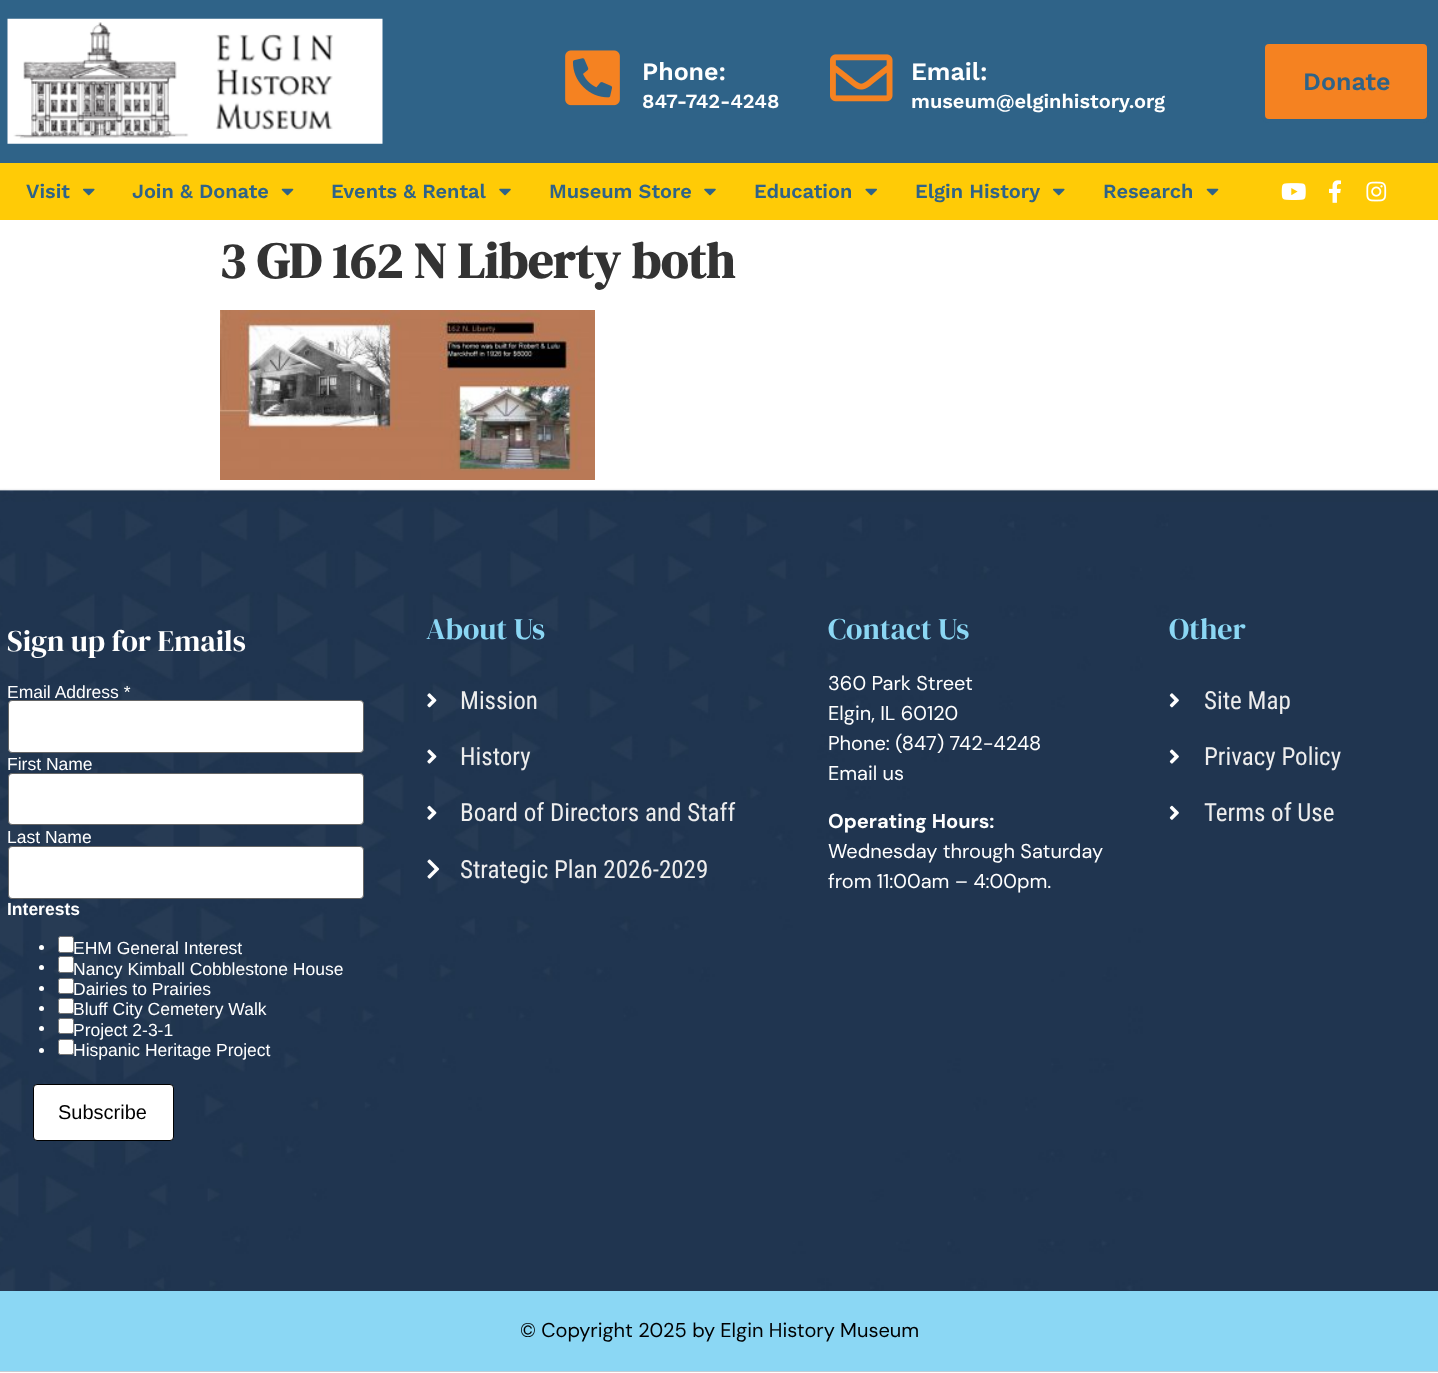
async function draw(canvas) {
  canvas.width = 1438;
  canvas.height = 1373;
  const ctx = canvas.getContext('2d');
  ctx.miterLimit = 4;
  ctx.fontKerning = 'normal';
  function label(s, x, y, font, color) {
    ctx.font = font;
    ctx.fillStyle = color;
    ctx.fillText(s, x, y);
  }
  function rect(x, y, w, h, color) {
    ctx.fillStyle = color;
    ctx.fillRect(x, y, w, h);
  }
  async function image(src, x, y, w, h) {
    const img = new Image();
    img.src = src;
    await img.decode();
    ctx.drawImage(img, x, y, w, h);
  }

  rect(0, 0, 1438, 1373, '#fff');
  rect(0, 0, 1438, 163, '#2f6388');
  await image('assets/img1.png', 7, 18, 376, 126);
  await image('assets/img2.png', 565, 50, 55, 56);
  label('Phone:', 642, 80, '600 25px Work Sans', '#fff');
  label('847-742-4248', 642, 108, '600 20px Work Sans', '#fff');
  await image('assets/img3.png', 830, 54, 63, 48);
  label('Email:', 911, 80, '600 25px Work Sans', '#fff');
  label('museum@elginhistory.org', 911, 108, '600 20px Work Sans', '#fff');
  ctx.fillStyle = '#f58221';
  ctx.beginPath();
  ctx.roundRect(1263, 42, 166, 79, 6);
  ctx.fill();
  ctx.strokeStyle = '#2f6388';
  ctx.lineWidth = 4;
  ctx.stroke();
  label('Donate', 1303, 90, '600 25px Work Sans', '#2f6388');
  rect(0, 163, 1438, 57, '#ffcb06');
  label('Visit', 26, 198, '600 20px Work Sans', '#2f6388');
  await image('assets/img4.png', 83, 188, 12, 8);
  label('Join & Donate', 132, 198, '600 20px Work Sans', '#2f6388');
  await image('assets/img5.png', 281, 188, 13, 8);
  label('Events & Rental', 331, 198, '600 20px Work Sans', '#2f6388');
  await image('assets/img6.png', 499, 188, 12, 8);
  label('Museum Store', 549, 198, '600 20px Work Sans', '#2f6388');
  await image('assets/img6.png', 704, 188, 12, 8);
  label('Education', 754, 198, '600 20px Work Sans', '#2f6388');
  await image('assets/img7.png', 865, 188, 12, 8);
  label('Elgin History', 915, 198, '600 20px Work Sans', '#2f6388');
  await image('assets/img4.png', 1053, 188, 12, 8);
  label('Research', 1103, 198, '600 20px Work Sans', '#2f6388');
  await image('assets/img5.png', 1206, 188, 13, 8);
  await image('assets/img8.png', 1281, 183, 25, 17);
  await image('assets/img9.png', 1329, 180, 12, 23);
  await image('assets/img10.png', 1366, 181, 21, 21);
  label('3 GD 162 N Liberty both', 219, 278, 'bold 50px DM Serif Display', '#333');
  await image('assets/img11.png', 220, 310, 375, 170);
  await image('assets/img12.png', 0, 488, 1438, 884);
  label('Sign up for Emails', 7, 651, '30px DM Serif Display', '#fff');
  label('Email Address *', 7, 698, '17.5px Liberation Sans', '#fff');
  ctx.beginPath();
  ctx.roundRect(8.5, 700.5, 355, 52, 3.5);
  ctx.fill();
  ctx.strokeStyle = '#666';
  ctx.lineWidth = 1;
  ctx.stroke();
  label('First Name', 7, 770, '17.5px Liberation Sans', '#fff');
  ctx.beginPath();
  ctx.roundRect(8.5, 773.5, 355, 51, 3.5);
  ctx.fill();
  ctx.stroke();
  label('Last Name', 7, 843, '17.5px Liberation Sans', '#fff');
  ctx.beginPath();
  ctx.roundRect(8.5, 846.5, 355, 52, 3.5);
  ctx.fill();
  ctx.stroke();
  label('Interests', 7, 915, 'bold 17.5px Liberation Sans', '#fff');
  ctx.beginPath();
  ctx.arc(41.5, 947.5, 2.5, 0, 2 * Math.PI);
  ctx.fill();
  ctx.beginPath();
  ctx.roundRect(58.5, 936.5, 15, 16, 2);
  ctx.fill();
  ctx.strokeStyle = '#767676';
  ctx.stroke();
  label('EHM General Interest', 73, 954, '17.5px Liberation Sans', '#fff');
  ctx.beginPath();
  ctx.arc(41.5, 967.5, 2.5, 0, 2 * Math.PI);
  ctx.fill();
  ctx.beginPath();
  ctx.roundRect(58.5, 956.5, 15, 16, 2);
  ctx.fill();
  ctx.stroke();
  label('Nancy Kimball Cobblestone House', 73, 975, '17.5px Liberation Sans', '#fff');
  ctx.beginPath();
  ctx.arc(41.5, 988.5, 2.5, 0, 2 * Math.PI);
  ctx.fill();
  ctx.beginPath();
  ctx.roundRect(58.5, 978.5, 15, 15, 2);
  ctx.fill();
  ctx.stroke();
  label('Dairies to Prairies', 73, 995, '17.5px Liberation Sans', '#fff');
  ctx.beginPath();
  ctx.arc(41.5, 1008.5, 2.5, 0, 2 * Math.PI);
  ctx.fill();
  ctx.beginPath();
  ctx.roundRect(58.5, 998.5, 15, 15, 2);
  ctx.fill();
  ctx.stroke();
  label('Bluff City Cemetery Walk', 73, 1015, '17.5px Liberation Sans', '#fff');
  ctx.beginPath();
  ctx.arc(41.5, 1028.5, 2.5, 0, 2 * Math.PI);
  ctx.fill();
  ctx.beginPath();
  ctx.roundRect(58.5, 1018.5, 15, 15, 2);
  ctx.fill();
  ctx.stroke();
  label('Project 2-3-1', 73, 1036, '17.5px Liberation Sans', '#fff');
  ctx.beginPath();
  ctx.arc(41.5, 1050.5, 2.5, 0, 2 * Math.PI);
  ctx.fill();
  ctx.beginPath();
  ctx.roundRect(58.5, 1039.5, 15, 15, 2);
  ctx.fill();
  ctx.stroke();
  label('Hispanic Heritage Project', 73, 1056, '17.5px Liberation Sans', '#fff');
  ctx.beginPath();
  ctx.roundRect(33.5, 1084.5, 140, 56, 3.5);
  ctx.fill();
  ctx.strokeStyle = '#000';
  ctx.stroke();
  label('Subscribe', 58, 1119, '20px Liberation Sans', '#000');
  label('About Us', 426, 639, '30px DM Serif Display', '#8bd7f4');
  await image('assets/img13.png', 427, 693, 10, 15);
  label('Mission', 460, 709, '25px Roboto Condensed', '#ededed');
  await image('assets/img14.png', 427, 749, 10, 15);
  label('History', 460, 765, '25px Roboto Condensed', '#ededed');
  await image('assets/img15.png', 427, 805, 10, 15);
  label('Board of Directors and Staff', 460, 821, '25px Roboto Condensed', '#ededed');
  await image('assets/img16.png', 427, 859, 13, 20);
  label('Strategic Plan 2026-2029', 460, 878, '25px Roboto Condensed', '#ededed');
  label('Contact Us', 828, 639, '30px DM Serif Display', '#8bd7f4');
  label('360 Park Street', 828, 690, '20px DM Sans', '#fff');
  label('Elgin, IL 60120', 828, 720, '20px DM Sans', '#fff');
  label('Phone: (847) 742-4248', 828, 750, '20px DM Sans', '#fff');
  label('Email us', 828, 780, '20px DM Sans', '#fff');
  label('Operating Hours:', 828, 828, 'bold 20px DM Sans', '#fff');
  label('Wednesday through Saturday', 828, 858, '20px DM Sans', '#fff');
  label('from 11:00am – 4:00pm.', 828, 888, '20px DM Sans', '#fff');
  label('Other', 1169, 639, '30px DM Serif Display', '#8bd7f4');
  await image('assets/img17.png', 1169, 693, 10, 15);
  label('Site Map', 1204, 709, '25px Roboto Condensed', '#ededed');
  await image('assets/img18.png', 1169, 749, 10, 15);
  label('Privacy Policy', 1204, 765, '25px Roboto Condensed', '#ededed');
  await image('assets/img19.png', 1169, 805, 10, 15);
  label('Terms of Use', 1204, 821, '25px Roboto Condensed', '#ededed');
  rect(0, 1291, 1438, 80, '#8bd7f4');
  label('© Copyright 2025 by Elgin History Museum', 520, 1337, '20px DM Sans', '#000');
}

draw(document.querySelector('canvas'));
